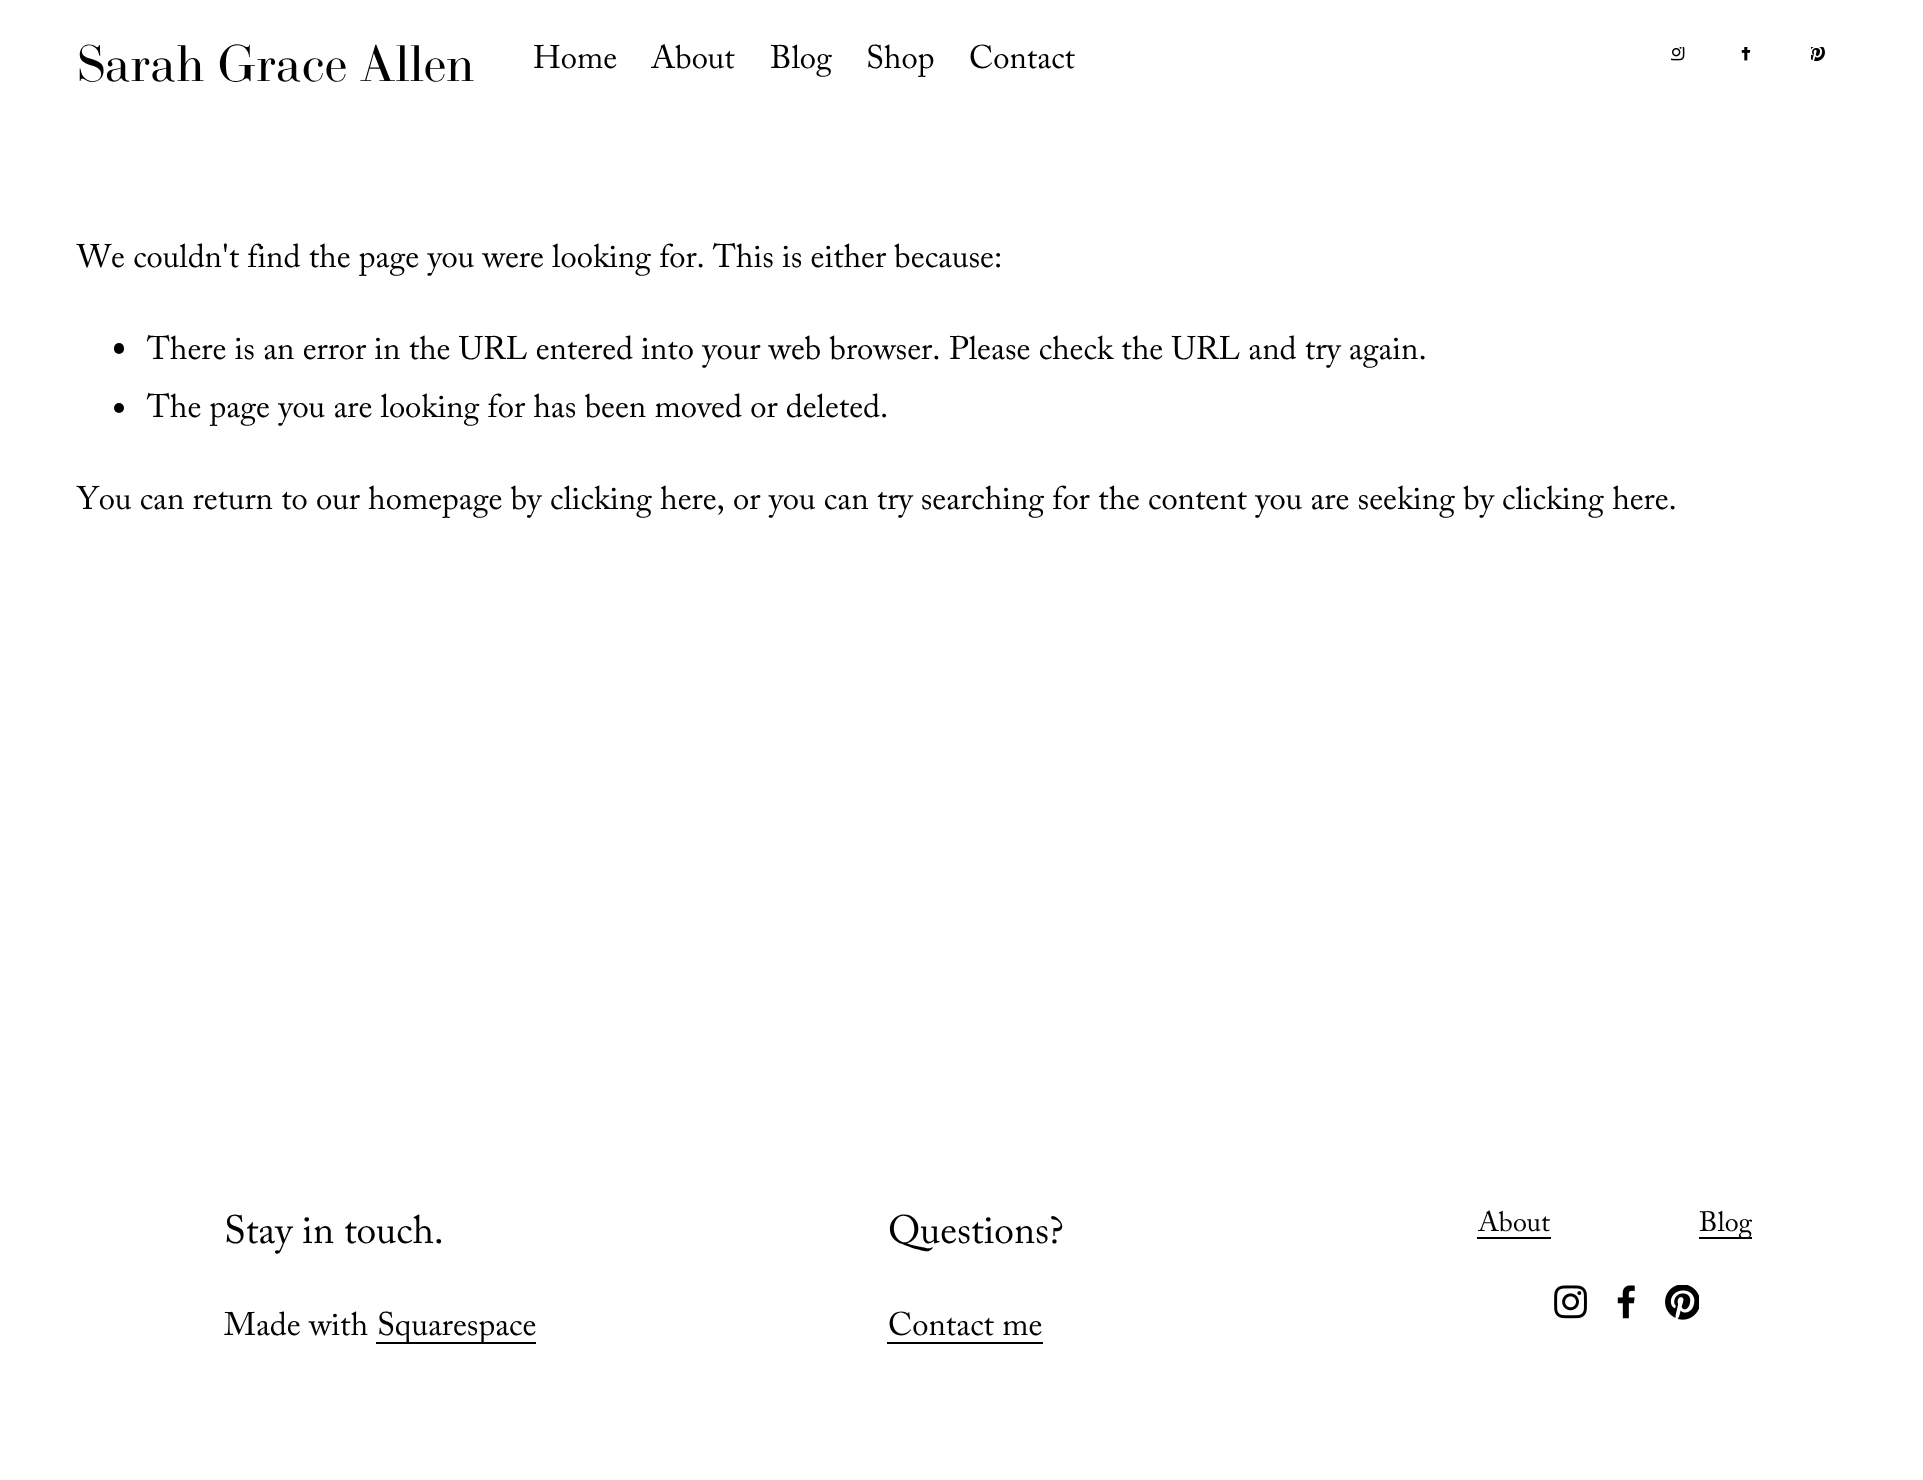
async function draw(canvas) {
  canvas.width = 1923;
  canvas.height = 1480;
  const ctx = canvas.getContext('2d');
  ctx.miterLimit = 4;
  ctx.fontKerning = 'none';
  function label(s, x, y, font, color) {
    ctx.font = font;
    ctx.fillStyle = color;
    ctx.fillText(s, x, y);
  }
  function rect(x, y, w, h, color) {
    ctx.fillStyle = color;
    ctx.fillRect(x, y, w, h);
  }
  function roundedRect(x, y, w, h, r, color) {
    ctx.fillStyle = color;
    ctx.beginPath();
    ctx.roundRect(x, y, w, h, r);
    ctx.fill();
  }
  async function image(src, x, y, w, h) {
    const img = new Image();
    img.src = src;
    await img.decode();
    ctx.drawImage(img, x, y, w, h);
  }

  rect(0, 0, 1923, 1480, '#fff');
  label('Sarah Grace Allen', 77, 81, '51px "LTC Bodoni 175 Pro"', '#000');
  label('Home', 533, 68, '32.6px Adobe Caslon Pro', '#000');
  label('About', 651, 68, '32.6px Adobe Caslon Pro', '#000');
  label('Blog', 770, 68, '32.6px Adobe Caslon Pro', '#000');
  label('Shop', 866, 68, '32.6px Adobe Caslon Pro', '#000');
  label('Contact', 969, 68, '32.6px Adobe Caslon Pro', '#000');
  await image('assets/img1.png', 1671, 47, 14, 14);
  await image('assets/img2.png', 1741, 47, 10, 14);
  await image('assets/img3.png', 1811, 47, 14, 15);
  label('We couldn\'t find the page you were looking for.', 77, 267, '32.6px Adobe Caslon Pro', '#000');
  label('This is either because:', 713, 267, '32.6px Adobe Caslon Pro', '#000');
  roundedRect(114, 343, 10, 11, 5, '#000');
  label('There is an error in the URL entered into your web browser.', 147, 359, '32.6px Adobe Caslon Pro', '#000');
  label('Please check the URL and try again.', 949, 359, '32.6px Adobe Caslon Pro', '#000');
  ctx.beginPath();
  ctx.arc(119, 408, 5, 0, 2 * Math.PI);
  ctx.fill();
  label('The page you are looking for has been moved or deleted.', 147, 417, '32.6px Adobe Caslon Pro', '#000');
  label('You can return to our homepage by', 77, 509, '32.6px Adobe Caslon Pro', '#000');
  label('clicking here, or you can try searching for the', 550, 509, '32.6px Adobe Caslon Pro', '#000');
  label('content you are seeking by clicking here.', 1148, 509, '32.6px Adobe Caslon Pro', '#000');
  label('Stay in touch.', 224, 1243, '39.5px Adobe Caslon Pro', '#000');
  label('Made with', 224, 1335, '32.6px Adobe Caslon Pro', '#000');
  rect(376, 1342, 160, 2, '#000');
  label('Squarespace', 377, 1335, '32.6px Adobe Caslon Pro', '#000');
  label('Questions?', 888, 1243, '39.5px Adobe Caslon Pro', '#000');
  label('Contact me', 888, 1335, '32.6px Adobe Caslon Pro', '#000');
  rect(887, 1342, 156, 2, '#000');
  label('About', 1478, 1231, '28px Adobe Caslon Pro', '#000');
  rect(1477, 1237, 74, 2, '#000');
  await image('assets/img4.png', 1554, 1285, 33, 34);
  await image('assets/img5.png', 1617, 1285, 18, 34);
  await image('assets/img6.png', 1665, 1285, 34, 35);
  rect(1699, 1237, 53, 2, '#000');
  label('Blog', 1699, 1231, '28px Adobe Caslon Pro', '#000');
}

draw(document.querySelector('canvas'));
